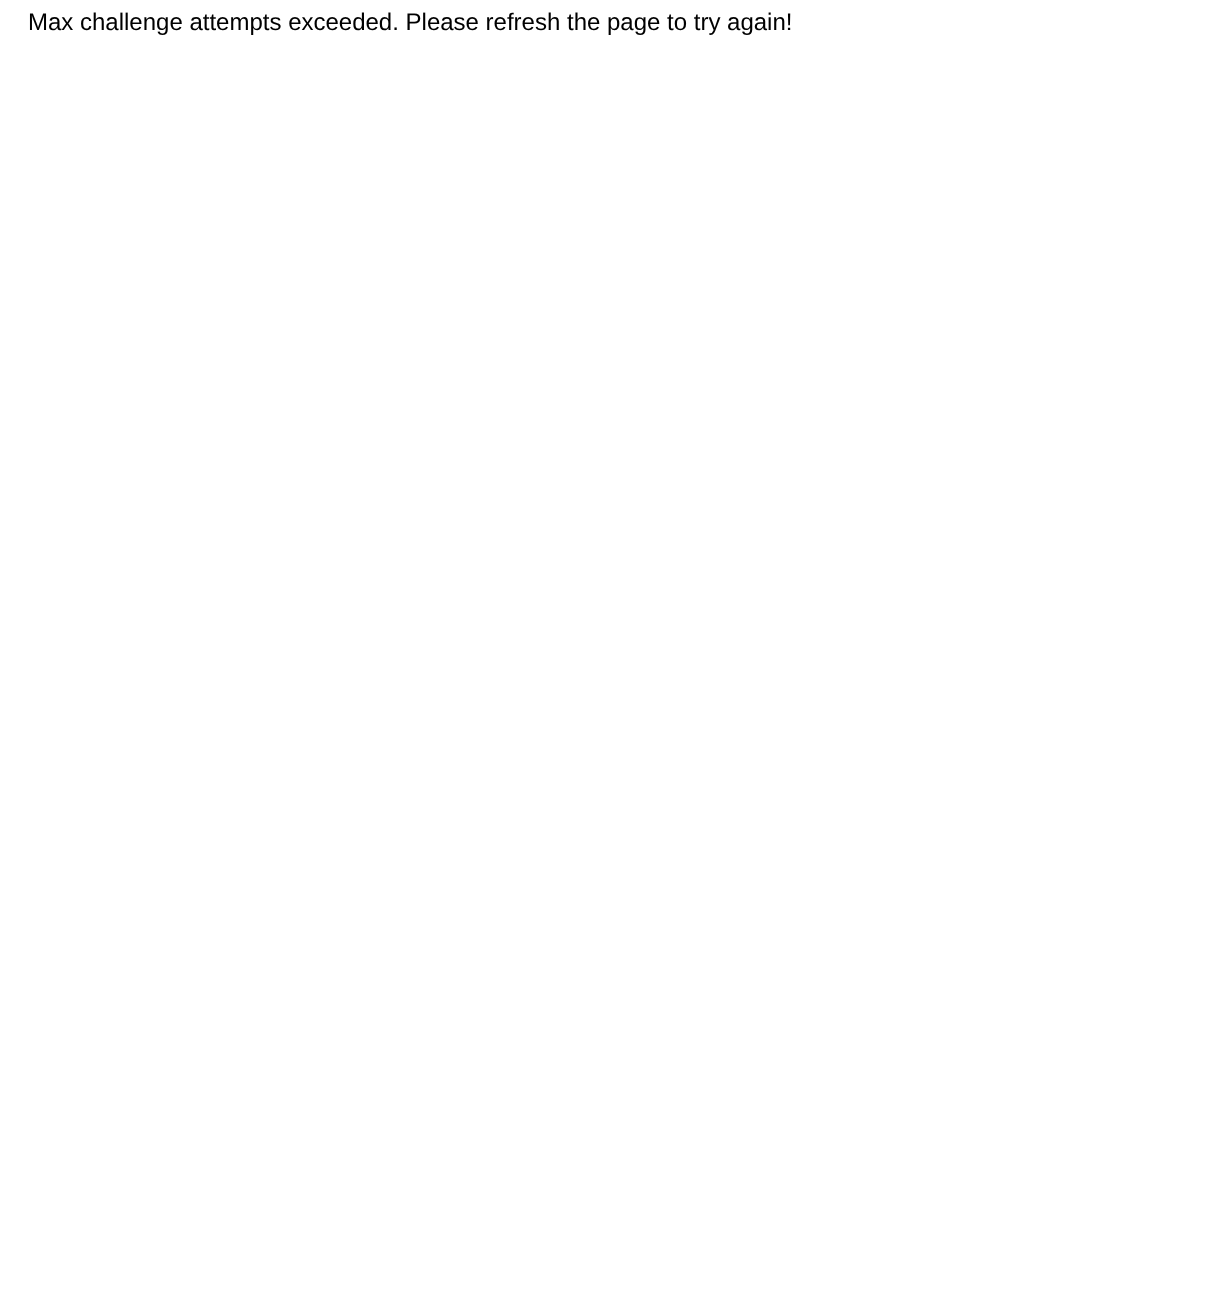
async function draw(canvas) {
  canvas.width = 1226;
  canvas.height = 1309;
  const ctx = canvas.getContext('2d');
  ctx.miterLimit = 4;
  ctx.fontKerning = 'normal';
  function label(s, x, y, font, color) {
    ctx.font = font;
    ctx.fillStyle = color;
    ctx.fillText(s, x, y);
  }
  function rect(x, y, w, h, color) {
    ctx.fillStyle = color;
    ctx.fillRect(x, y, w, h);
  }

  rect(0, 0, 1226, 1309, '#fff');
  label('Max challenge attempts exceeded. Please refresh the page to try again!', 28, 30, '24px Liberation Sans', '#000');
}

draw(document.querySelector('canvas'));
